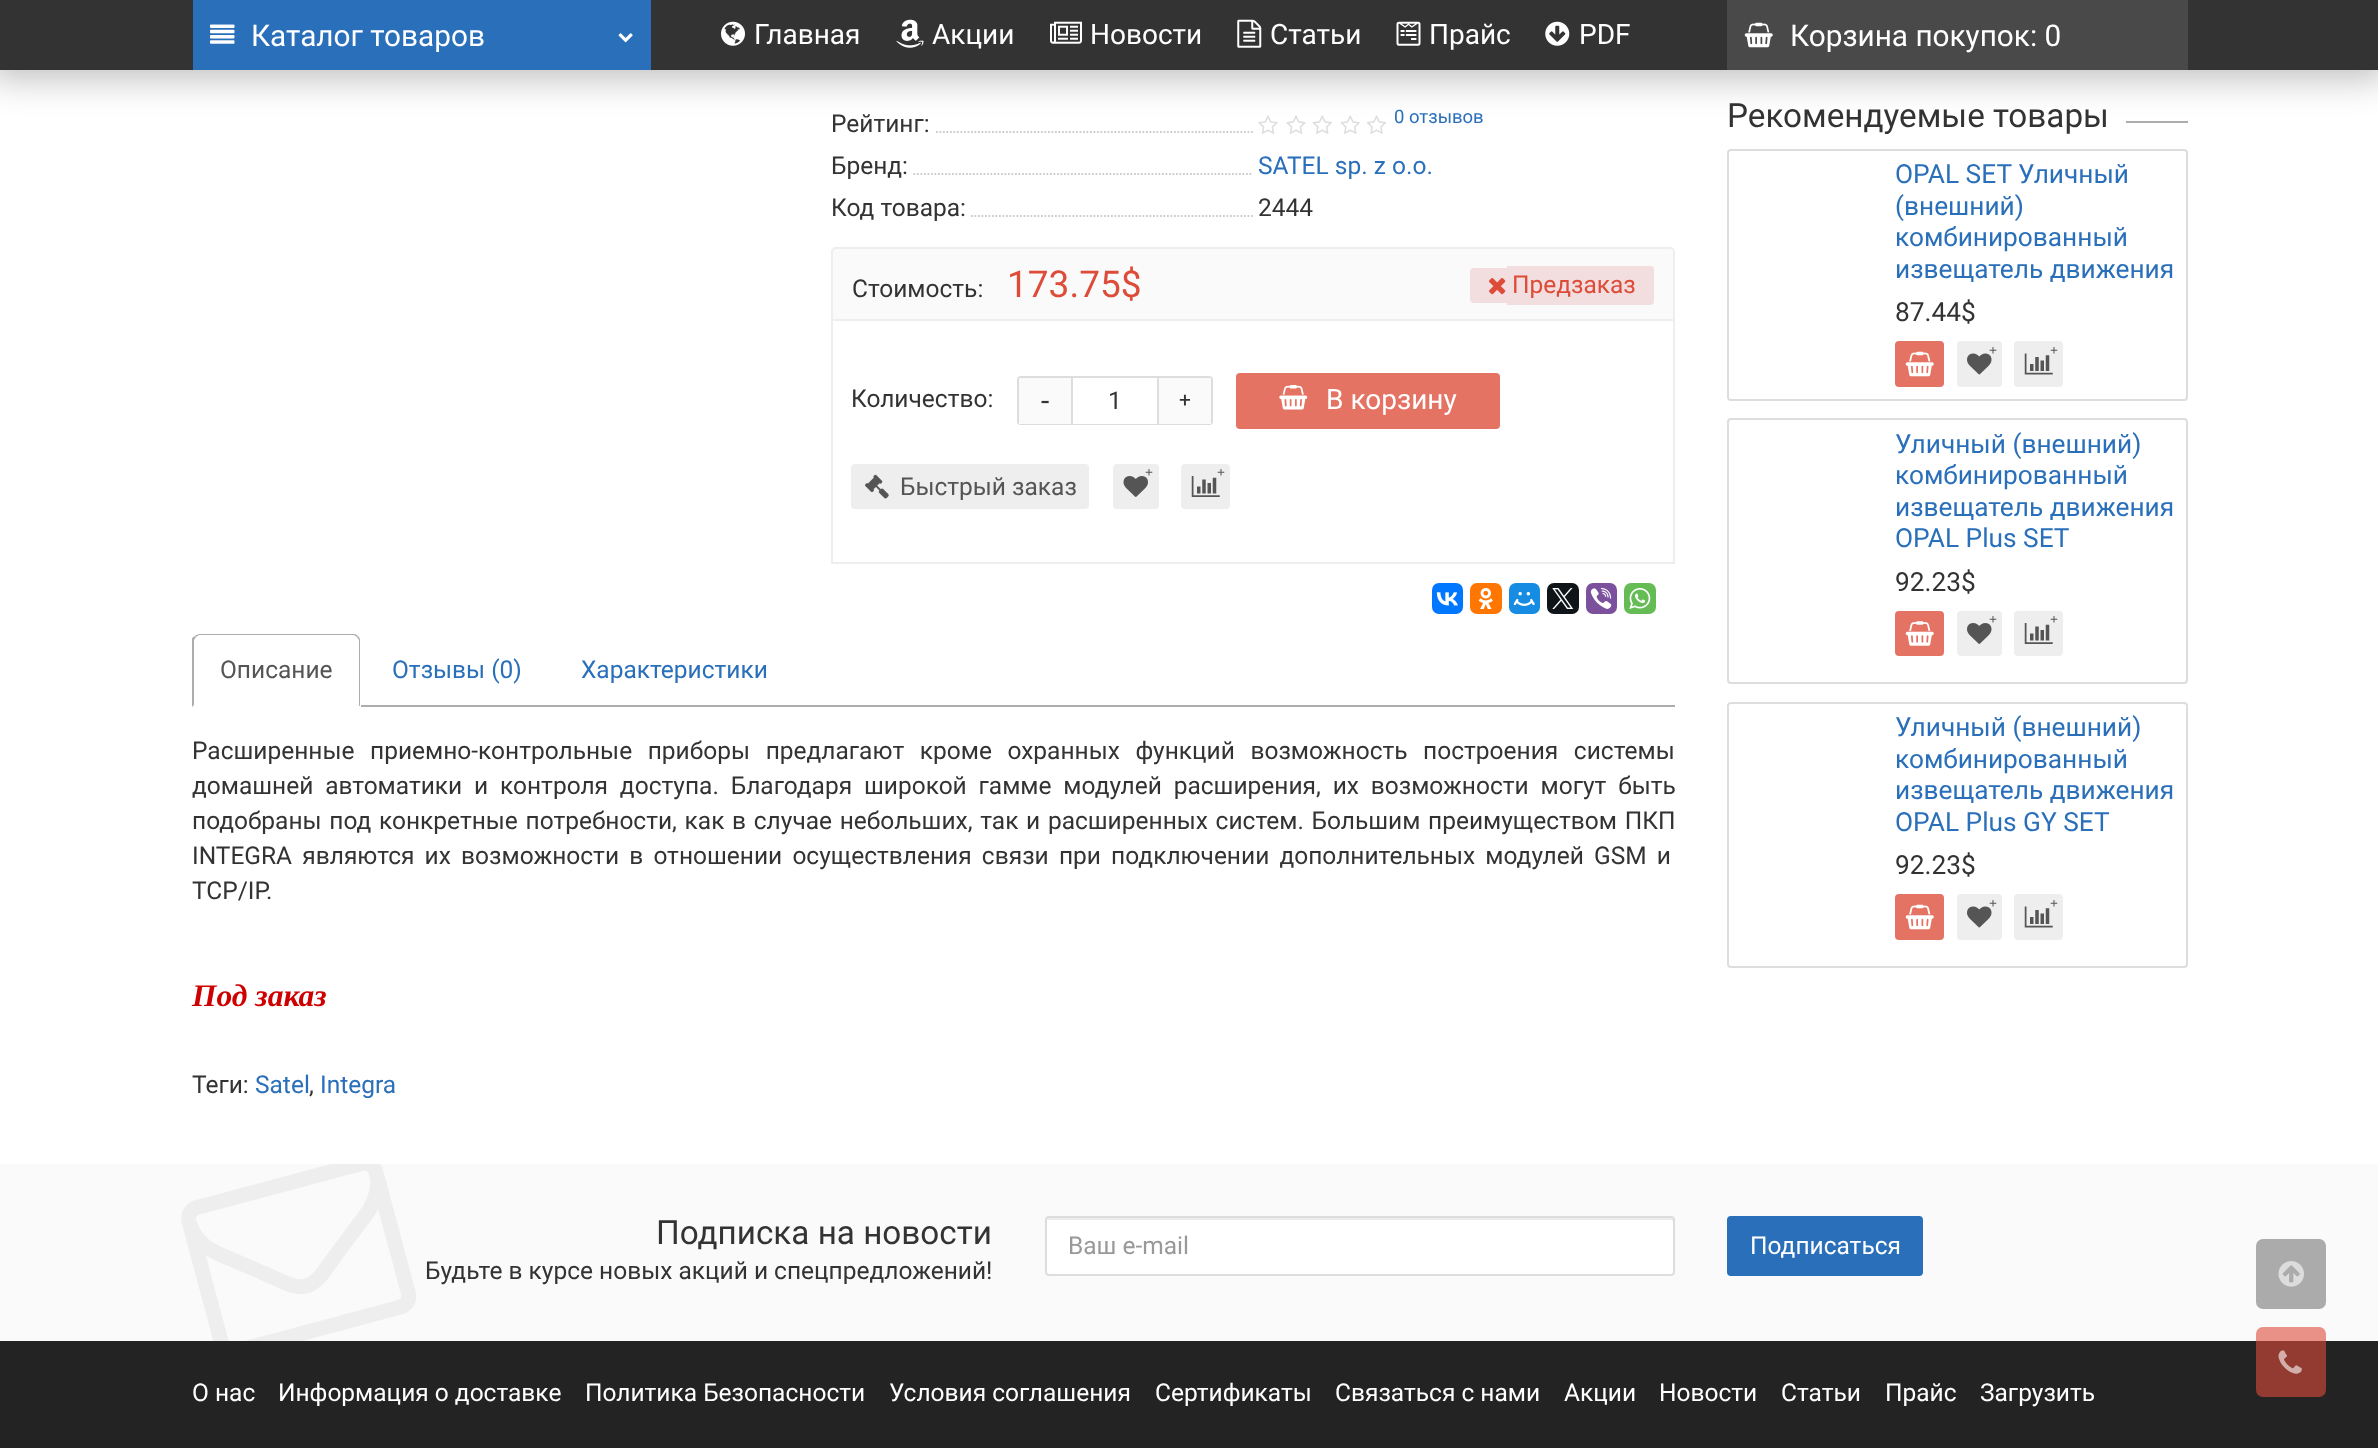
async function draw(canvas) {
  canvas.width = 2378;
  canvas.height = 1448;
  const ctx = canvas.getContext('2d');
  ctx.miterLimit = 4;
  ctx.fontKerning = 'normal';
  function label(s, x, y, font, color) {
    ctx.font = font;
    ctx.fillStyle = color;
    ctx.fillText(s, x, y);
  }
  function rect(x, y, w, h, color) {
    ctx.fillStyle = color;
    ctx.fillRect(x, y, w, h);
  }
  function roundedRect(x, y, w, h, r, color) {
    ctx.fillStyle = color;
    ctx.beginPath();
    ctx.roundRect(x, y, w, h, r);
    ctx.fill();
  }
  async function image(src, x, y, w, h) {
    const img = new Image();
    img.src = src;
    await img.decode();
    ctx.drawImage(img, x, y, w, h);
  }
  let path;

  rect(0, 0, 2378, 1448, '#fff');
  ctx.save();
  ctx.beginPath();
  ctx.rect(831, 103, 422, 42);
  ctx.clip();
  path = new Path2D('M936 132H1356');
  ctx.strokeStyle = '#ccc';
  ctx.lineWidth = 1.8;
  ctx.setLineDash([1.75, 1.75]);
  ctx.stroke(path);
  ctx.restore();
  await image('assets/img10.png', 1258, 115, 20, 19);
  await image('assets/img10.png', 1286, 115, 20, 19);
  await image('assets/img11.png', 1312, 115, 20, 19);
  await image('assets/img11.png', 1340, 115, 20, 19);
  await image('assets/img12.png', 1366, 115, 20, 19);
  rect(2126, 121, 62, 2, '#adadad');
  ctx.fillStyle = '#00000040';
  ctx.filter = 'blur(17.5px)';
  ctx.beginPath();
  ctx.rect(-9, -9, 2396, 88);
  ctx.fill();
  ctx.filter = 'none';
  rect(0, 0, 2378, 70, '#333');
  rect(193, 0, 458, 70, '#2a6fba');
  await image('assets/img1.png', 210, 24, 25, 20);
  label('Каталог товаров', 251, 46, '29.75px Roboto', '#fff');
  await image('assets/img2.png', 618, 33, 15, 10);
  await image('assets/img3.png', 721, 21, 24, 25);
  label('Главная', 754, 44, '28px Roboto', '#fff');
  await image('assets/img4.png', 896, 19, 28, 29);
  label('Акции', 932, 44, '28px Roboto', '#fff');
  await image('assets/img5.png', 1050, 21, 32, 23);
  label('Новости', 1090, 44, '28px Roboto', '#fff');
  await image('assets/img6.png', 1237, 19, 25, 29);
  label('Статьи', 1270, 44, '28px Roboto', '#fff');
  await image('assets/img7.png', 1396, 21, 25, 25);
  label('Прайс', 1429, 44, '28px Roboto', '#fff');
  await image('assets/img8.png', 1545, 21, 25, 25);
  label('PDF', 1579, 44, '28px Roboto', '#fff');
  rect(1727, 0, 461, 70, '#494949');
  await image('assets/img9.png', 1744, 22, 29, 26);
  label('Корзина покупок: 0', 1790, 46, '29.75px Roboto', '#fff');
  label('Рейтинг:', 831, 132, '24.5px Roboto', '#333');
  label('0 отзывов', 1394, 123, '18.5px Roboto', '#2a6fba');
  label('Бренд:', 831, 174, '24.5px Roboto', '#333');
  ctx.save();
  ctx.beginPath();
  ctx.rect(831, 145, 422, 42);
  ctx.clip();
  path = new Path2D('M913.5 174H1335');
  ctx.strokeStyle = '#ccc';
  ctx.lineWidth = 1.8;
  ctx.setLineDash([1.75, 1.75]);
  ctx.stroke(path);
  ctx.restore();
  label('SATEL sp. z o.o.', 1258, 174, '24.5px Roboto', '#2a6fba');
  label('Код товара:', 831, 216, '24.5px Roboto', '#333');
  ctx.save();
  ctx.beginPath();
  ctx.rect(831, 187, 422, 42);
  ctx.clip();
  path = new Path2D('M971 216H1393');
  ctx.strokeStyle = '#ccc';
  ctx.lineWidth = 1.8;
  ctx.setLineDash([1.75, 1.75]);
  ctx.stroke(path);
  ctx.restore();
  label('2444', 1258, 216, '24.5px Roboto', '#333');
  ctx.fillStyle = '#fafafa';
  ctx.beginPath();
  ctx.roundRect(832, 248, 842, 315, 4);
  ctx.fill();
  ctx.strokeStyle = '#eee';
  ctx.lineWidth = 2;
  ctx.stroke();
  label('Стоимость:', 852, 297, '24.5px Roboto', '#333');
  label('173.75$', 1007, 297, '37px Roboto', '#dd4b39');
  ctx.fillStyle = '#f2dede';
  ctx.beginPath();
  ctx.roundRect(1470, 268, 37, 35, [4, 0, 0, 4]);
  ctx.fill();
  ctx.beginPath();
  ctx.roundRect(1507, 266, 147, 39, [0, 4, 4, 0]);
  ctx.fill();
  await image('assets/img13.png', 1489, 278, 17, 17);
  label('Предзаказ', 1512, 293, '24.5px Roboto', '#dd4b39');
  ctx.fillStyle = '#fff';
  ctx.beginPath();
  ctx.rect(832, 320, 842, 243);
  ctx.fill();
  ctx.stroke();
  label('Количество:', 851, 407, '24.5px Roboto', '#333');
  ctx.beginPath();
  ctx.roundRect(1018, 377, 194, 47, 3);
  ctx.strokeStyle = '#ddd';
  ctx.stroke();
  rect(1073, 423, 84, 1, '#fff');
  rect(1157, 378, 2, 46, '#ddd');
  rect(1071, 378, 2, 46, '#ddd');
  label('1', 1108, 409, '24.5px Roboto', '#333');
  rect(1019, 378, 52, 46, '#fafafa');
  label('-', 1041, 411, '29.75px Roboto', '#333');
  rect(1159, 378, 52, 46, '#fafafa');
  label('+', 1179, 407, '21px Roboto', '#333');
  roundedRect(1236, 373, 264, 56, 4, '#e47364');
  await image('assets/img14.png', 1279, 385, 29, 25);
  label('В корзину', 1326, 409, '28px Roboto', '#fff');
  ctx.fillStyle = '#eee';
  ctx.beginPath();
  ctx.roundRect(1115, 466, 42, 41, 2);
  ctx.fill();
  ctx.strokeStyle = '#eee';
  ctx.lineWidth = 4;
  ctx.stroke();
  label('+', 1145, 477, 'bold 14px Liberation Serif', '#555');
  await image('assets/img15.png', 1123, 476, 25, 21);
  ctx.fillStyle = '#eee';
  ctx.beginPath();
  ctx.roundRect(1183, 466, 45, 41, 2);
  ctx.fill();
  ctx.stroke();
  label('+', 1217, 477, 'bold 14px Liberation Serif', '#555');
  await image('assets/img16.png', 1191, 476, 29, 21);
  ctx.fillStyle = '#eee';
  ctx.beginPath();
  ctx.roundRect(853, 466, 234, 41, 2);
  ctx.fill();
  ctx.stroke();
  await image('assets/img17.png', 865, 474, 24, 25);
  label('Быстрый заказ', 900, 495, '24.5px Roboto', '#555');
  roundedRect(1432, 583, 31, 31, 7, '#07f');
  await image('assets/img18.png', 1436, 592, 22, 14);
  roundedRect(1470, 583, 32, 31, 7, '#f70');
  await image('assets/img19.png', 1478, 588, 15, 21);
  roundedRect(1509, 583, 31, 31, 7, '#168de2');
  await image('assets/img20.png', 1513, 592, 22, 14);
  roundedRect(1547, 583, 32, 31, 7, '#0f1419');
  await image('assets/img21.png', 1552, 588, 22, 21);
  roundedRect(1586, 583, 31, 31, 7, '#7b519d');
  await image('assets/img22.png', 1590, 588, 22, 21);
  roundedRect(1624, 583, 32, 31, 7, '#65bc54');
  await image('assets/img23.png', 1629, 588, 22, 21);
  rect(361, 705, 1314, 2, '#adadad');
  path = new Path2D('M200 634C198 634 196 635 195 636L196 637L199 635H354L357 637L358 636C357 635 356 634 354 634Z');
  ctx.fill(path);
  path = new Path2D('M360 706V640C360 638 359 637 358 636L357 637L359 640V705H358Z');
  ctx.fill(path);
  path = new Path2D('M192 707L194 705V640L196 637L195 636L192 638Z');
  ctx.fill(path);
  label('Описание', 220, 678, '24.5px Roboto', '#555');
  label('Отзывы (0)', 392, 678, '24.5px Roboto', '#2a6fba');
  label('Характеристики', 581, 678, '24.5px Roboto', '#2a6fba');
  ctx.wordSpacing = '9.5px';
  label('Расширенные приемно-контрольные приборы предлагают кроме охранных функций возможность построения системы', 192, 759, '24.5px Roboto', '#333');
  ctx.wordSpacing = '5.75px';
  label('домашней автоматики и контроля доступа. Благодаря широкой гамме модулей расширения, их возможности могут быть', 192, 794, '24.5px Roboto', '#333');
  ctx.wordSpacing = '1.6px';
  label('подобраны под конкретные потребности, как в случае небольших, так и расширенных систем. Большим преимуществом ПКП', 192, 829, '24.5px Roboto', '#333');
  ctx.wordSpacing = '4.1px';
  label('INTEGRA являются их возможности в отношении осуществления связи при подключении дополнительных модулей GSM и', 192, 864, '24.5px Roboto', '#333');
  ctx.wordSpacing = '0px';
  label('TCP/IP.', 192, 899, '24.5px Roboto', '#333');
  label('Под заказ', 192, 1006, 'italic bold 31.5px Liberation Serif', '#ce0000');
  label('Теги:', 192, 1093, '24.5px Roboto', '#333');
  label('Satel', 255, 1093, '24.5px Roboto', '#2a6fba');
  label(',', 309, 1093, '24.5px Roboto', '#333');
  label('Integra', 320, 1093, '24.5px Roboto', '#2a6fba');
  label('Рекомендуемые товары', 1727, 127, '33.25px Roboto', '#333');
  ctx.beginPath();
  ctx.roundRect(1728, 150, 459, 250, 3);
  ctx.strokeStyle = '#ddd';
  ctx.lineWidth = 2;
  ctx.stroke();
  label('OPAL SET Уличный', 1895, 183, '26.25px Roboto', '#2a6fba');
  label('(внешний)', 1895, 215, '26.25px Roboto', '#2a6fba');
  label('комбинированный', 1895, 246, '26.25px Roboto', '#2a6fba');
  label('извещатель движения', 1895, 278, '26.25px Roboto', '#2a6fba');
  label('87.44$', 1895, 321, '26.25px Roboto', '#333');
  ctx.fillStyle = '#e47364';
  ctx.beginPath();
  ctx.roundRect(1897, 343, 45, 42, 2);
  ctx.fill();
  ctx.strokeStyle = '#e47364';
  ctx.lineWidth = 4;
  ctx.stroke();
  await image('assets/img24.png', 1905, 351, 29, 26);
  ctx.fillStyle = '#eee';
  ctx.beginPath();
  ctx.roundRect(1959, 343, 41, 42, 2);
  ctx.fill();
  ctx.strokeStyle = '#eee';
  ctx.stroke();
  await image('assets/img25.png', 1967, 353, 25, 22);
  label('+', 1989, 355, 'bold 14px Liberation Serif', '#555');
  ctx.fillStyle = '#eee';
  ctx.beginPath();
  ctx.roundRect(2016, 343, 45, 42, 2);
  ctx.fill();
  ctx.stroke();
  await image('assets/img26.png', 2024, 353, 29, 22);
  label('+', 2050, 355, 'bold 14px Liberation Serif', '#555');
  ctx.beginPath();
  ctx.roundRect(1728, 419, 459, 264, 3);
  ctx.strokeStyle = '#ddd';
  ctx.lineWidth = 2;
  ctx.stroke();
  label('Уличный (внешний)', 1895, 453, '26.25px Roboto', '#2a6fba');
  label('комбинированный', 1895, 484, '26.25px Roboto', '#2a6fba');
  label('извещатель движения', 1895, 516, '26.25px Roboto', '#2a6fba');
  label('OPAL Plus SET', 1895, 547, '26.25px Roboto', '#2a6fba');
  label('92.23$', 1895, 591, '26.25px Roboto', '#333');
  ctx.fillStyle = '#e47364';
  ctx.beginPath();
  ctx.roundRect(1897, 613, 45, 41, 2);
  ctx.fill();
  ctx.strokeStyle = '#e47364';
  ctx.lineWidth = 4;
  ctx.stroke();
  await image('assets/img27.png', 1905, 621, 29, 25);
  ctx.fillStyle = '#eee';
  ctx.beginPath();
  ctx.roundRect(1959, 613, 41, 41, 2);
  ctx.fill();
  ctx.strokeStyle = '#eee';
  ctx.stroke();
  label('+', 1989, 624, 'bold 14px Liberation Serif', '#555');
  await image('assets/img28.png', 1967, 623, 25, 21);
  ctx.fillStyle = '#eee';
  ctx.beginPath();
  ctx.roundRect(2016, 613, 45, 41, 2);
  ctx.fill();
  ctx.stroke();
  label('+', 2050, 624, 'bold 14px Liberation Serif', '#555');
  await image('assets/img16.png', 2024, 623, 29, 21);
  ctx.beginPath();
  ctx.roundRect(1728, 703, 459, 264, 3);
  ctx.strokeStyle = '#ddd';
  ctx.lineWidth = 2;
  ctx.stroke();
  label('Уличный (внешний)', 1895, 736, '26.25px Roboto', '#2a6fba');
  label('комбинированный', 1895, 768, '26.25px Roboto', '#2a6fba');
  label('извещатель движения', 1895, 799, '26.25px Roboto', '#2a6fba');
  label('OPAL Plus GY SET', 1895, 831, '26.25px Roboto', '#2a6fba');
  label('92.23$', 1895, 874, '26.25px Roboto', '#333');
  ctx.fillStyle = '#e47364';
  ctx.beginPath();
  ctx.roundRect(1897, 896, 45, 42, 2);
  ctx.fill();
  ctx.strokeStyle = '#e47364';
  ctx.lineWidth = 4;
  ctx.stroke();
  await image('assets/img24.png', 1905, 904, 29, 26);
  ctx.fillStyle = '#eee';
  ctx.beginPath();
  ctx.roundRect(1959, 896, 41, 42, 2);
  ctx.fill();
  ctx.strokeStyle = '#eee';
  ctx.stroke();
  await image('assets/img25.png', 1967, 906, 25, 22);
  label('+', 1989, 908, 'bold 14px Liberation Serif', '#555');
  ctx.fillStyle = '#eee';
  ctx.beginPath();
  ctx.roundRect(2016, 896, 45, 42, 2);
  ctx.fill();
  ctx.stroke();
  await image('assets/img26.png', 2024, 906, 29, 22);
  label('+', 2050, 908, 'bold 14px Liberation Serif', '#555');
  rect(0, 1164, 2378, 177, '#fafafa');
  await image('assets/img29.png', 181, 1164, 235, 177);
  label('Подписка на новости', 656, 1244, '33.25px Roboto', '#333');
  label('Будьте в курсе новых акций и спецпредложений!', 425, 1279, '24.5px Roboto', '#333');
  roundedRect(1045, 1216, 630, 60, 4, '#fff');
  ctx.fillStyle = '#ececec';
  path = new Path2D('M1048 1220H1671C1672 1220 1673 1221 1673 1222V1219L1671 1218H1049C1048 1218 1047 1219 1047 1220Z');
  ctx.fill(path);
  ctx.beginPath();
  ctx.roundRect(1046, 1217, 628, 58, 3);
  ctx.strokeStyle = '#ddd';
  ctx.lineWidth = 2;
  ctx.stroke();
  label('Ваш e-mail', 1068, 1254, '24.5px Roboto', '#999');
  ctx.fillStyle = '#2a6fba';
  ctx.beginPath();
  ctx.roundRect(1728, 1217, 194, 58, 3);
  ctx.fill();
  ctx.strokeStyle = '#2a6fba';
  ctx.stroke();
  label('Подписаться', 1750, 1254, '24.5px Roboto', '#fff');
  rect(0, 1341, 2378, 107, '#232323');
  label('О нас', 192, 1401, '24.5px Roboto', '#fff');
  label('Информация о доставке', 278, 1401, '24.5px Roboto', '#fff');
  label('Политика Безопасности', 585, 1401, '24.5px Roboto', '#fff');
  label('Условия соглашения', 889, 1401, '24.5px Roboto', '#fff');
  label('Сертификаты', 1155, 1401, '24.5px Roboto', '#fff');
  label('Связаться с нами', 1335, 1401, '24.5px Roboto', '#fff');
  label('Акции', 1564, 1401, '24.5px Roboto', '#fff');
  label('Новости', 1659, 1401, '24.5px Roboto', '#fff');
  label('Статьи', 1781, 1401, '24.5px Roboto', '#fff');
  label('Прайс', 1885, 1401, '24.5px Roboto', '#fff');
  label('Загрузить', 1980, 1401, '24.5px Roboto', '#fff');
  roundedRect(2256, 1239, 70, 70, 7, '#ababab');
  await image('assets/img30.png', 2278, 1261, 26, 26);
  roundedRect(2256, 1327, 70, 70, 7, '#dd4b3999');
  await image('assets/img31.png', 2278, 1350, 24, 24);
}

draw(document.querySelector('canvas'));
